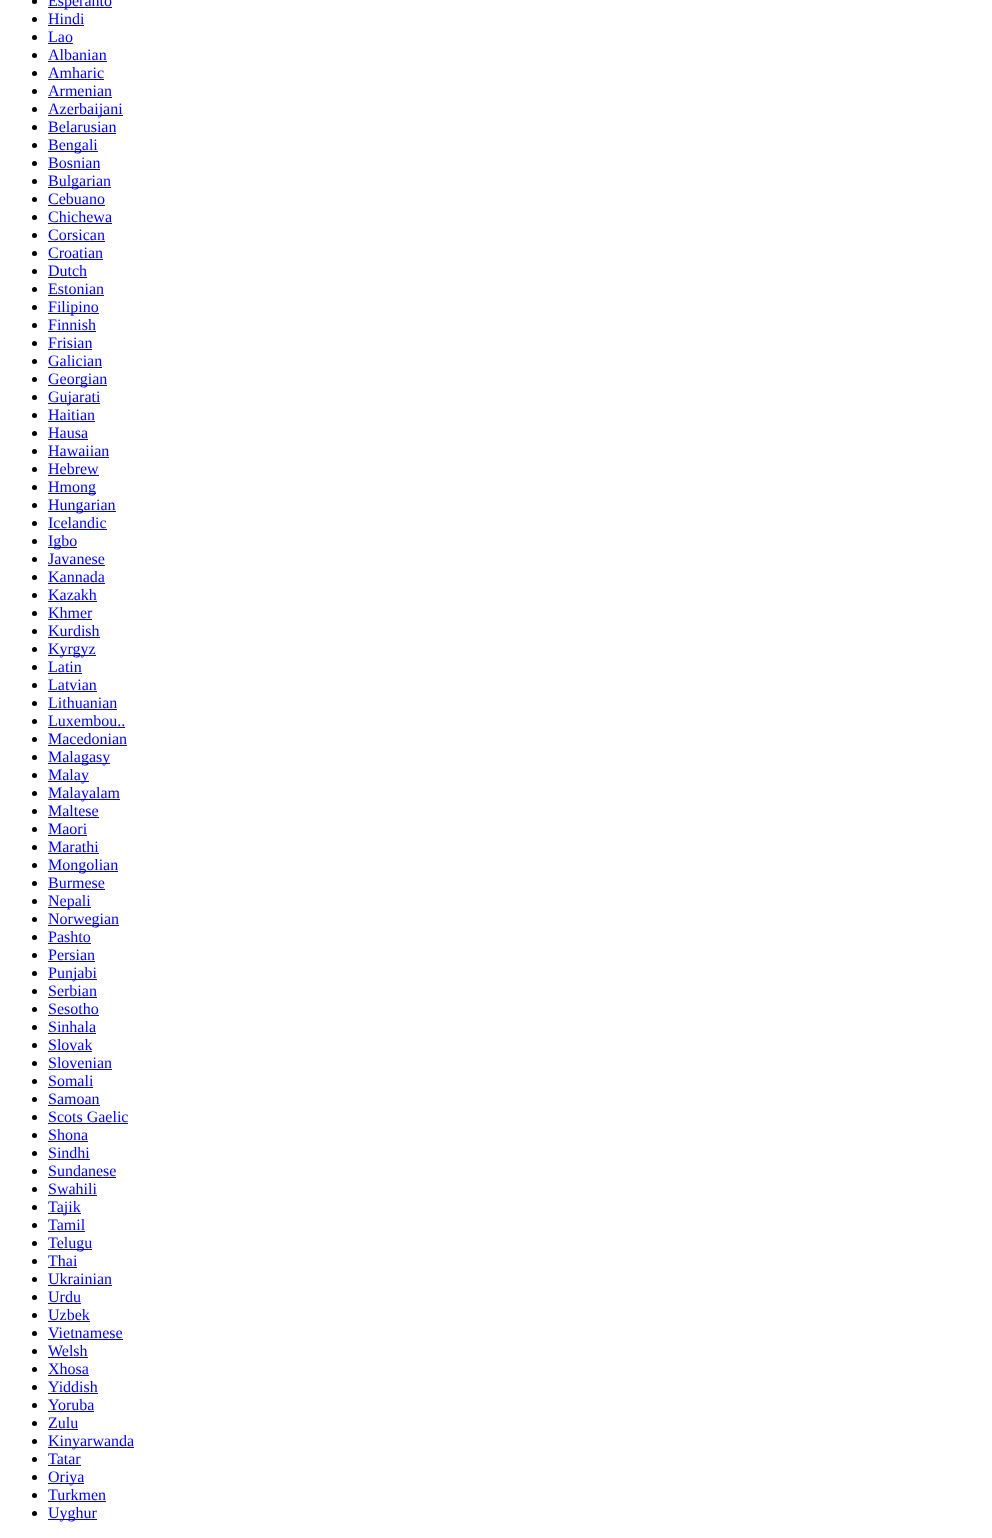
async function draw(canvas) {
  canvas.width = 992;
  canvas.height = 1538;
  const ctx = canvas.getContext('2d');
  ctx.miterLimit = 4;
  ctx.fontKerning = 'normal';
  function label(s, x, y, font, color) {
    ctx.font = font;
    ctx.fillStyle = color;
    ctx.fillText(s, x, y);
  }
  function rect(x, y, w, h, color) {
    ctx.fillStyle = color;
    ctx.fillRect(x, y, w, h);
  }

  rect(0, 0, 992, 1538, '#fff');
  ctx.fillStyle = '#000';
  ctx.beginPath();
  ctx.arc(34.5, 1.5, 2.5, 0, 2 * Math.PI);
  ctx.fill();
  rect(48, 7, 64, 1, '#00e');
  label('Esperanto', 48, 6, '16px Liberation Serif', '#00e');
  ctx.fillStyle = '#000';
  ctx.beginPath();
  ctx.arc(34.5, 19.5, 2.5, 0, 2 * Math.PI);
  ctx.fill();
  label('Hindi', 48, 24, '16px Liberation Serif', '#00e');
  rect(48, 25, 36, 1, '#00e');
  ctx.fillStyle = '#000';
  ctx.beginPath();
  ctx.arc(34.5, 37.5, 2.5, 0, 2 * Math.PI);
  ctx.fill();
  label('Lao', 48, 42, '16px Liberation Serif', '#00e');
  rect(48, 43, 25, 1, '#00e');
  ctx.fillStyle = '#000';
  ctx.beginPath();
  ctx.arc(34.5, 55.5, 2.5, 0, 2 * Math.PI);
  ctx.fill();
  label('Albanian', 48, 60, '16px Liberation Serif', '#00e');
  rect(48, 61, 59, 1, '#00e');
  ctx.fillStyle = '#000';
  ctx.beginPath();
  ctx.arc(34.5, 73.5, 2.5, 0, 2 * Math.PI);
  ctx.fill();
  label('Amharic', 48, 78, '16px Liberation Serif', '#00e');
  rect(48, 79, 56, 1, '#00e');
  ctx.fillStyle = '#000';
  ctx.beginPath();
  ctx.arc(34.5, 91.5, 2.5, 0, 2 * Math.PI);
  ctx.fill();
  label('Armenian', 48, 96, '16px Liberation Serif', '#00e');
  rect(48, 97, 64, 1, '#00e');
  ctx.fillStyle = '#000';
  ctx.beginPath();
  ctx.arc(34.5, 109.5, 2.5, 0, 2 * Math.PI);
  ctx.fill();
  rect(48, 115, 75, 1, '#00e');
  label('Azerbaijani', 48, 114, '16px Liberation Serif', '#00e');
  ctx.fillStyle = '#000';
  ctx.beginPath();
  ctx.arc(34.5, 127.5, 2.5, 0, 2 * Math.PI);
  ctx.fill();
  label('Belarusian', 48, 132, '16px Liberation Serif', '#00e');
  rect(48, 133, 68, 1, '#00e');
  ctx.fillStyle = '#000';
  ctx.beginPath();
  ctx.arc(34.5, 145.5, 2.5, 0, 2 * Math.PI);
  ctx.fill();
  rect(48, 151, 50, 1, '#00e');
  label('Bengali', 48, 150, '16px Liberation Serif', '#00e');
  ctx.fillStyle = '#000';
  ctx.beginPath();
  ctx.arc(34.5, 163.5, 2.5, 0, 2 * Math.PI);
  ctx.fill();
  label('Bosnian', 48, 168, '16px Liberation Serif', '#00e');
  rect(48, 169, 52, 1, '#00e');
  ctx.fillStyle = '#000';
  ctx.beginPath();
  ctx.arc(34.5, 181.5, 2.5, 0, 2 * Math.PI);
  ctx.fill();
  rect(48, 187, 63, 1, '#00e');
  label('Bulgarian', 48, 186, '16px Liberation Serif', '#00e');
  ctx.fillStyle = '#000';
  ctx.beginPath();
  ctx.arc(34.5, 199.5, 2.5, 0, 2 * Math.PI);
  ctx.fill();
  label('Cebuano', 48, 204, '16px Liberation Serif', '#00e');
  rect(48, 205, 57, 1, '#00e');
  ctx.fillStyle = '#000';
  ctx.beginPath();
  ctx.arc(34.5, 217.5, 2.5, 0, 2 * Math.PI);
  ctx.fill();
  label('Chichewa', 48, 222, '16px Liberation Serif', '#00e');
  rect(48, 223, 64, 1, '#00e');
  ctx.fillStyle = '#000';
  ctx.beginPath();
  ctx.arc(34.5, 235.5, 2.5, 0, 2 * Math.PI);
  ctx.fill();
  label('Corsican', 48, 240, '16px Liberation Serif', '#00e');
  rect(48, 241, 57, 1, '#00e');
  ctx.fillStyle = '#000';
  ctx.beginPath();
  ctx.arc(34.5, 253.5, 2.5, 0, 2 * Math.PI);
  ctx.fill();
  label('Croatian', 48, 258, '16px Liberation Serif', '#00e');
  rect(48, 259, 55, 1, '#00e');
  ctx.fillStyle = '#000';
  ctx.beginPath();
  ctx.arc(34.5, 271.5, 2.5, 0, 2 * Math.PI);
  ctx.fill();
  label('Dutch', 48, 276, '16px Liberation Serif', '#00e');
  rect(48, 277, 39, 1, '#00e');
  ctx.fillStyle = '#000';
  ctx.beginPath();
  ctx.arc(34.5, 289.5, 2.5, 0, 2 * Math.PI);
  ctx.fill();
  label('Estonian', 48, 294, '16px Liberation Serif', '#00e');
  rect(48, 295, 56, 1, '#00e');
  ctx.fillStyle = '#000';
  ctx.beginPath();
  ctx.arc(34.5, 307.5, 2.5, 0, 2 * Math.PI);
  ctx.fill();
  rect(48, 313, 51, 1, '#00e');
  label('Filipino', 48, 312, '16px Liberation Serif', '#00e');
  ctx.fillStyle = '#000';
  ctx.beginPath();
  ctx.arc(34.5, 325.5, 2.5, 0, 2 * Math.PI);
  ctx.fill();
  label('Finnish', 48, 330, '16px Liberation Serif', '#00e');
  rect(48, 331, 48, 1, '#00e');
  ctx.fillStyle = '#000';
  ctx.beginPath();
  ctx.arc(34.5, 343.5, 2.5, 0, 2 * Math.PI);
  ctx.fill();
  label('Frisian', 48, 348, '16px Liberation Serif', '#00e');
  rect(48, 349, 44, 1, '#00e');
  ctx.fillStyle = '#000';
  ctx.beginPath();
  ctx.arc(34.5, 361.5, 2.5, 0, 2 * Math.PI);
  ctx.fill();
  label('Galician', 48, 366, '16px Liberation Serif', '#00e');
  rect(48, 367, 54, 1, '#00e');
  ctx.fillStyle = '#000';
  ctx.beginPath();
  ctx.arc(34.5, 379.5, 2.5, 0, 2 * Math.PI);
  ctx.fill();
  rect(48, 385, 59, 1, '#00e');
  label('Georgian', 48, 384, '16px Liberation Serif', '#00e');
  ctx.fillStyle = '#000';
  ctx.beginPath();
  ctx.arc(34.5, 397.5, 2.5, 0, 2 * Math.PI);
  ctx.fill();
  rect(48, 403, 52, 1, '#00e');
  label('Gujarati', 48, 402, '16px Liberation Serif', '#00e');
  ctx.fillStyle = '#000';
  ctx.beginPath();
  ctx.arc(34.5, 415.5, 2.5, 0, 2 * Math.PI);
  ctx.fill();
  label('Haitian', 48, 420, '16px Liberation Serif', '#00e');
  rect(48, 421, 47, 1, '#00e');
  ctx.fillStyle = '#000';
  ctx.beginPath();
  ctx.arc(34.5, 433.5, 2.5, 0, 2 * Math.PI);
  ctx.fill();
  label('Hausa', 48, 438, '16px Liberation Serif', '#00e');
  rect(48, 439, 40, 1, '#00e');
  ctx.fillStyle = '#000';
  ctx.beginPath();
  ctx.arc(34.5, 451.5, 2.5, 0, 2 * Math.PI);
  ctx.fill();
  label('Hawaiian', 48, 456, '16px Liberation Serif', '#00e');
  rect(48, 457, 61, 1, '#00e');
  ctx.fillStyle = '#000';
  ctx.beginPath();
  ctx.arc(34.5, 469.5, 2.5, 0, 2 * Math.PI);
  ctx.fill();
  label('Hebrew', 48, 474, '16px Liberation Serif', '#00e');
  rect(48, 475, 51, 1, '#00e');
  ctx.fillStyle = '#000';
  ctx.beginPath();
  ctx.arc(34.5, 487.5, 2.5, 0, 2 * Math.PI);
  ctx.fill();
  rect(48, 493, 48, 1, '#00e');
  label('Hmong', 48, 492, '16px Liberation Serif', '#00e');
  ctx.fillStyle = '#000';
  ctx.beginPath();
  ctx.arc(34.5, 505.5, 2.5, 0, 2 * Math.PI);
  ctx.fill();
  rect(48, 511, 68, 1, '#00e');
  label('Hungarian', 48, 510, '16px Liberation Serif', '#00e');
  ctx.fillStyle = '#000';
  ctx.beginPath();
  ctx.arc(34.5, 523.5, 2.5, 0, 2 * Math.PI);
  ctx.fill();
  label('Icelandic', 48, 528, '16px Liberation Serif', '#00e');
  rect(48, 529, 59, 1, '#00e');
  ctx.fillStyle = '#000';
  ctx.beginPath();
  ctx.arc(34.5, 541.5, 2.5, 0, 2 * Math.PI);
  ctx.fill();
  rect(48, 547, 29, 1, '#00e');
  label('Igbo', 48, 546, '16px Liberation Serif', '#00e');
  ctx.fillStyle = '#000';
  ctx.beginPath();
  ctx.arc(34.5, 559.5, 2.5, 0, 2 * Math.PI);
  ctx.fill();
  label('Javanese', 48, 564, '16px Liberation Serif', '#00e');
  rect(48, 565, 57, 1, '#00e');
  ctx.fillStyle = '#000';
  ctx.beginPath();
  ctx.arc(34.5, 577.5, 2.5, 0, 2 * Math.PI);
  ctx.fill();
  label('Kannada', 48, 582, '16px Liberation Serif', '#00e');
  rect(48, 583, 57, 1, '#00e');
  ctx.fillStyle = '#000';
  ctx.beginPath();
  ctx.arc(34.5, 595.5, 2.5, 0, 2 * Math.PI);
  ctx.fill();
  label('Kazakh', 48, 600, '16px Liberation Serif', '#00e');
  rect(48, 601, 49, 1, '#00e');
  ctx.fillStyle = '#000';
  ctx.beginPath();
  ctx.arc(34.5, 613.5, 2.5, 0, 2 * Math.PI);
  ctx.fill();
  label('Khmer', 48, 618, '16px Liberation Serif', '#00e');
  rect(48, 619, 44, 1, '#00e');
  ctx.fillStyle = '#000';
  ctx.beginPath();
  ctx.arc(34.5, 631.5, 2.5, 0, 2 * Math.PI);
  ctx.fill();
  label('Kurdish', 48, 636, '16px Liberation Serif', '#00e');
  rect(48, 637, 52, 1, '#00e');
  ctx.fillStyle = '#000';
  ctx.beginPath();
  ctx.arc(34.5, 649.5, 2.5, 0, 2 * Math.PI);
  ctx.fill();
  rect(48, 655, 48, 1, '#00e');
  label('Kyrgyz', 48, 654, '16px Liberation Serif', '#00e');
  ctx.fillStyle = '#000';
  ctx.beginPath();
  ctx.arc(34.5, 667.5, 2.5, 0, 2 * Math.PI);
  ctx.fill();
  label('Latin', 48, 672, '16px Liberation Serif', '#00e');
  rect(48, 673, 34, 1, '#00e');
  ctx.fillStyle = '#000';
  ctx.beginPath();
  ctx.arc(34.5, 685.5, 2.5, 0, 2 * Math.PI);
  ctx.fill();
  label('Latvian', 48, 690, '16px Liberation Serif', '#00e');
  rect(48, 691, 49, 1, '#00e');
  ctx.fillStyle = '#000';
  ctx.beginPath();
  ctx.arc(34.5, 703.5, 2.5, 0, 2 * Math.PI);
  ctx.fill();
  label('Lithuanian', 48, 708, '16px Liberation Serif', '#00e');
  rect(48, 709, 69, 1, '#00e');
  ctx.fillStyle = '#000';
  ctx.beginPath();
  ctx.arc(34.5, 721.5, 2.5, 0, 2 * Math.PI);
  ctx.fill();
  label('Luxembou..', 48, 726, '16px Liberation Serif', '#00e');
  rect(48, 727, 77, 1, '#00e');
  ctx.fillStyle = '#000';
  ctx.beginPath();
  ctx.arc(34.5, 739.5, 2.5, 0, 2 * Math.PI);
  ctx.fill();
  label('Macedonian', 48, 744, '16px Liberation Serif', '#00e');
  rect(48, 745, 79, 1, '#00e');
  ctx.fillStyle = '#000';
  ctx.beginPath();
  ctx.arc(34.5, 757.5, 2.5, 0, 2 * Math.PI);
  ctx.fill();
  rect(48, 763, 62, 1, '#00e');
  label('Malagasy', 48, 762, '16px Liberation Serif', '#00e');
  ctx.fillStyle = '#000';
  ctx.beginPath();
  ctx.arc(34.5, 775.5, 2.5, 0, 2 * Math.PI);
  ctx.fill();
  rect(48, 781, 41, 1, '#00e');
  label('Malay', 48, 780, '16px Liberation Serif', '#00e');
  ctx.fillStyle = '#000';
  ctx.beginPath();
  ctx.arc(34.5, 793.5, 2.5, 0, 2 * Math.PI);
  ctx.fill();
  rect(48, 799, 72, 1, '#00e');
  label('Malayalam', 48, 798, '16px Liberation Serif', '#00e');
  ctx.fillStyle = '#000';
  ctx.beginPath();
  ctx.arc(34.5, 811.5, 2.5, 0, 2 * Math.PI);
  ctx.fill();
  label('Maltese', 48, 816, '16px Liberation Serif', '#00e');
  rect(48, 817, 51, 1, '#00e');
  ctx.fillStyle = '#000';
  ctx.beginPath();
  ctx.arc(34.5, 829.5, 2.5, 0, 2 * Math.PI);
  ctx.fill();
  label('Maori', 48, 834, '16px Liberation Serif', '#00e');
  rect(48, 835, 39, 1, '#00e');
  ctx.fillStyle = '#000';
  ctx.beginPath();
  ctx.arc(34.5, 847.5, 2.5, 0, 2 * Math.PI);
  ctx.fill();
  label('Marathi', 48, 852, '16px Liberation Serif', '#00e');
  rect(48, 853, 51, 1, '#00e');
  ctx.fillStyle = '#000';
  ctx.beginPath();
  ctx.arc(34.5, 865.5, 2.5, 0, 2 * Math.PI);
  ctx.fill();
  rect(48, 871, 70, 1, '#00e');
  label('Mongolian', 48, 870, '16px Liberation Serif', '#00e');
  ctx.fillStyle = '#000';
  ctx.beginPath();
  ctx.arc(34.5, 883.5, 2.5, 0, 2 * Math.PI);
  ctx.fill();
  label('Burmese', 48, 888, '16px Liberation Serif', '#00e');
  rect(48, 889, 57, 1, '#00e');
  ctx.fillStyle = '#000';
  ctx.beginPath();
  ctx.arc(34.5, 901.5, 2.5, 0, 2 * Math.PI);
  ctx.fill();
  rect(48, 907, 43, 1, '#00e');
  label('Nepali', 48, 906, '16px Liberation Serif', '#00e');
  ctx.fillStyle = '#000';
  ctx.beginPath();
  ctx.arc(34.5, 919.5, 2.5, 0, 2 * Math.PI);
  ctx.fill();
  rect(48, 925, 71, 1, '#00e');
  label('Norwegian', 48, 924, '16px Liberation Serif', '#00e');
  ctx.fillStyle = '#000';
  ctx.beginPath();
  ctx.arc(34.5, 937.5, 2.5, 0, 2 * Math.PI);
  ctx.fill();
  label('Pashto', 48, 942, '16px Liberation Serif', '#00e');
  rect(48, 943, 43, 1, '#00e');
  ctx.fillStyle = '#000';
  ctx.beginPath();
  ctx.arc(34.5, 955.5, 2.5, 0, 2 * Math.PI);
  ctx.fill();
  label('Persian', 48, 960, '16px Liberation Serif', '#00e');
  rect(48, 961, 47, 1, '#00e');
  ctx.fillStyle = '#000';
  ctx.beginPath();
  ctx.arc(34.5, 973.5, 2.5, 0, 2 * Math.PI);
  ctx.fill();
  rect(48, 979, 49, 1, '#00e');
  label('Punjabi', 48, 978, '16px Liberation Serif', '#00e');
  ctx.fillStyle = '#000';
  ctx.beginPath();
  ctx.arc(34.5, 991.5, 2.5, 0, 2 * Math.PI);
  ctx.fill();
  label('Serbian', 48, 996, '16px Liberation Serif', '#00e');
  rect(48, 997, 49, 1, '#00e');
  ctx.fillStyle = '#000';
  ctx.beginPath();
  ctx.arc(34.5, 1009.5, 2.5, 0, 2 * Math.PI);
  ctx.fill();
  label('Sesotho', 48, 1014, '16px Liberation Serif', '#00e');
  rect(48, 1015, 51, 1, '#00e');
  ctx.fillStyle = '#000';
  ctx.beginPath();
  ctx.arc(34.5, 1027.5, 2.5, 0, 2 * Math.PI);
  ctx.fill();
  label('Sinhala', 48, 1032, '16px Liberation Serif', '#00e');
  rect(48, 1033, 48, 1, '#00e');
  ctx.fillStyle = '#000';
  ctx.beginPath();
  ctx.arc(34.5, 1045.5, 2.5, 0, 2 * Math.PI);
  ctx.fill();
  label('Slovak', 48, 1050, '16px Liberation Serif', '#00e');
  rect(48, 1051, 44, 1, '#00e');
  ctx.fillStyle = '#000';
  ctx.beginPath();
  ctx.arc(34.5, 1063.5, 2.5, 0, 2 * Math.PI);
  ctx.fill();
  label('Slovenian', 48, 1068, '16px Liberation Serif', '#00e');
  rect(48, 1069, 64, 1, '#00e');
  ctx.fillStyle = '#000';
  ctx.beginPath();
  ctx.arc(34.5, 1081.5, 2.5, 0, 2 * Math.PI);
  ctx.fill();
  label('Somali', 48, 1086, '16px Liberation Serif', '#00e');
  rect(48, 1087, 45, 1, '#00e');
  ctx.fillStyle = '#000';
  ctx.beginPath();
  ctx.arc(34.5, 1099.5, 2.5, 0, 2 * Math.PI);
  ctx.fill();
  label('Samoan', 48, 1104, '16px Liberation Serif', '#00e');
  rect(48, 1105, 52, 1, '#00e');
  ctx.fillStyle = '#000';
  ctx.beginPath();
  ctx.arc(34.5, 1117.5, 2.5, 0, 2 * Math.PI);
  ctx.fill();
  label('Scots Gaelic', 48, 1122, '16px Liberation Serif', '#00e');
  rect(48, 1123, 80, 1, '#00e');
  ctx.fillStyle = '#000';
  ctx.beginPath();
  ctx.arc(34.5, 1135.5, 2.5, 0, 2 * Math.PI);
  ctx.fill();
  label('Shona', 48, 1140, '16px Liberation Serif', '#00e');
  rect(48, 1141, 40, 1, '#00e');
  ctx.fillStyle = '#000';
  ctx.beginPath();
  ctx.arc(34.5, 1153.5, 2.5, 0, 2 * Math.PI);
  ctx.fill();
  label('Sindhi', 48, 1158, '16px Liberation Serif', '#00e');
  rect(48, 1159, 42, 1, '#00e');
  ctx.fillStyle = '#000';
  ctx.beginPath();
  ctx.arc(34.5, 1171.5, 2.5, 0, 2 * Math.PI);
  ctx.fill();
  label('Sundanese', 48, 1176, '16px Liberation Serif', '#00e');
  rect(48, 1177, 68, 1, '#00e');
  ctx.fillStyle = '#000';
  ctx.beginPath();
  ctx.arc(34.5, 1189.5, 2.5, 0, 2 * Math.PI);
  ctx.fill();
  label('Swahili', 48, 1194, '16px Liberation Serif', '#00e');
  rect(48, 1195, 49, 1, '#00e');
  ctx.fillStyle = '#000';
  ctx.beginPath();
  ctx.arc(34.5, 1207.5, 2.5, 0, 2 * Math.PI);
  ctx.fill();
  rect(48, 1213, 33, 1, '#00e');
  label('Tajik', 48, 1212, '16px Liberation Serif', '#00e');
  ctx.fillStyle = '#000';
  ctx.beginPath();
  ctx.arc(34.5, 1225.5, 2.5, 0, 2 * Math.PI);
  ctx.fill();
  label('Tamil', 48, 1230, '16px Liberation Serif', '#00e');
  rect(48, 1231, 37, 1, '#00e');
  ctx.fillStyle = '#000';
  ctx.beginPath();
  ctx.arc(34.5, 1243.5, 2.5, 0, 2 * Math.PI);
  ctx.fill();
  rect(48, 1249, 44, 1, '#00e');
  label('Telugu', 48, 1248, '16px Liberation Serif', '#00e');
  ctx.fillStyle = '#000';
  ctx.beginPath();
  ctx.arc(34.5, 1261.5, 2.5, 0, 2 * Math.PI);
  ctx.fill();
  label('Thai', 48, 1266, '16px Liberation Serif', '#00e');
  rect(48, 1267, 29, 1, '#00e');
  ctx.fillStyle = '#000';
  ctx.beginPath();
  ctx.arc(34.5, 1279.5, 2.5, 0, 2 * Math.PI);
  ctx.fill();
  label('Ukrainian', 48, 1284, '16px Liberation Serif', '#00e');
  rect(48, 1285, 64, 1, '#00e');
  ctx.fillStyle = '#000';
  ctx.beginPath();
  ctx.arc(34.5, 1297.5, 2.5, 0, 2 * Math.PI);
  ctx.fill();
  label('Urdu', 48, 1302, '16px Liberation Serif', '#00e');
  rect(48, 1303, 33, 1, '#00e');
  ctx.fillStyle = '#000';
  ctx.beginPath();
  ctx.arc(34.5, 1315.5, 2.5, 0, 2 * Math.PI);
  ctx.fill();
  label('Uzbek', 48, 1320, '16px Liberation Serif', '#00e');
  rect(48, 1321, 42, 1, '#00e');
  ctx.fillStyle = '#000';
  ctx.beginPath();
  ctx.arc(34.5, 1333.5, 2.5, 0, 2 * Math.PI);
  ctx.fill();
  label('Vietnamese', 48, 1338, '16px Liberation Serif', '#00e');
  rect(48, 1339, 75, 1, '#00e');
  ctx.fillStyle = '#000';
  ctx.beginPath();
  ctx.arc(34.5, 1351.5, 2.5, 0, 2 * Math.PI);
  ctx.fill();
  label('Welsh', 48, 1356, '16px Liberation Serif', '#00e');
  rect(48, 1357, 40, 1, '#00e');
  ctx.fillStyle = '#000';
  ctx.beginPath();
  ctx.arc(34.5, 1369.5, 2.5, 0, 2 * Math.PI);
  ctx.fill();
  label('Xhosa', 48, 1374, '16px Liberation Serif', '#00e');
  rect(48, 1375, 41, 1, '#00e');
  ctx.fillStyle = '#000';
  ctx.beginPath();
  ctx.arc(34.5, 1387.5, 2.5, 0, 2 * Math.PI);
  ctx.fill();
  label('Yiddish', 48, 1392, '16px Liberation Serif', '#00e');
  rect(48, 1393, 50, 1, '#00e');
  ctx.fillStyle = '#000';
  ctx.beginPath();
  ctx.arc(34.5, 1405.5, 2.5, 0, 2 * Math.PI);
  ctx.fill();
  label('Yoruba', 48, 1410, '16px Liberation Serif', '#00e');
  rect(48, 1411, 46, 1, '#00e');
  ctx.fillStyle = '#000';
  ctx.beginPath();
  ctx.arc(34.5, 1423.5, 2.5, 0, 2 * Math.PI);
  ctx.fill();
  label('Zulu', 48, 1428, '16px Liberation Serif', '#00e');
  rect(48, 1429, 30, 1, '#00e');
  ctx.fillStyle = '#000';
  ctx.beginPath();
  ctx.arc(34.5, 1441.5, 2.5, 0, 2 * Math.PI);
  ctx.fill();
  rect(48, 1447, 86, 1, '#00e');
  label('Kinyarwanda', 48, 1446, '16px Liberation Serif', '#00e');
  ctx.fillStyle = '#000';
  ctx.beginPath();
  ctx.arc(34.5, 1459.5, 2.5, 0, 2 * Math.PI);
  ctx.fill();
  label('Tatar', 48, 1464, '16px Liberation Serif', '#00e');
  rect(48, 1465, 33, 1, '#00e');
  ctx.fillStyle = '#000';
  ctx.beginPath();
  ctx.arc(34.5, 1477.5, 2.5, 0, 2 * Math.PI);
  ctx.fill();
  rect(48, 1483, 36, 1, '#00e');
  label('Oriya', 48, 1482, '16px Liberation Serif', '#00e');
  ctx.fillStyle = '#000';
  ctx.beginPath();
  ctx.arc(34.5, 1495.5, 2.5, 0, 2 * Math.PI);
  ctx.fill();
  label('Turkmen', 48, 1500, '16px Liberation Serif', '#00e');
  rect(48, 1501, 58, 1, '#00e');
  ctx.fillStyle = '#000';
  ctx.beginPath();
  ctx.arc(34.5, 1513.5, 2.5, 0, 2 * Math.PI);
  ctx.fill();
  rect(48, 1519, 49, 1, '#00e');
  label('Uyghur', 48, 1518, '16px Liberation Serif', '#00e');
}

draw(document.querySelector('canvas'));
